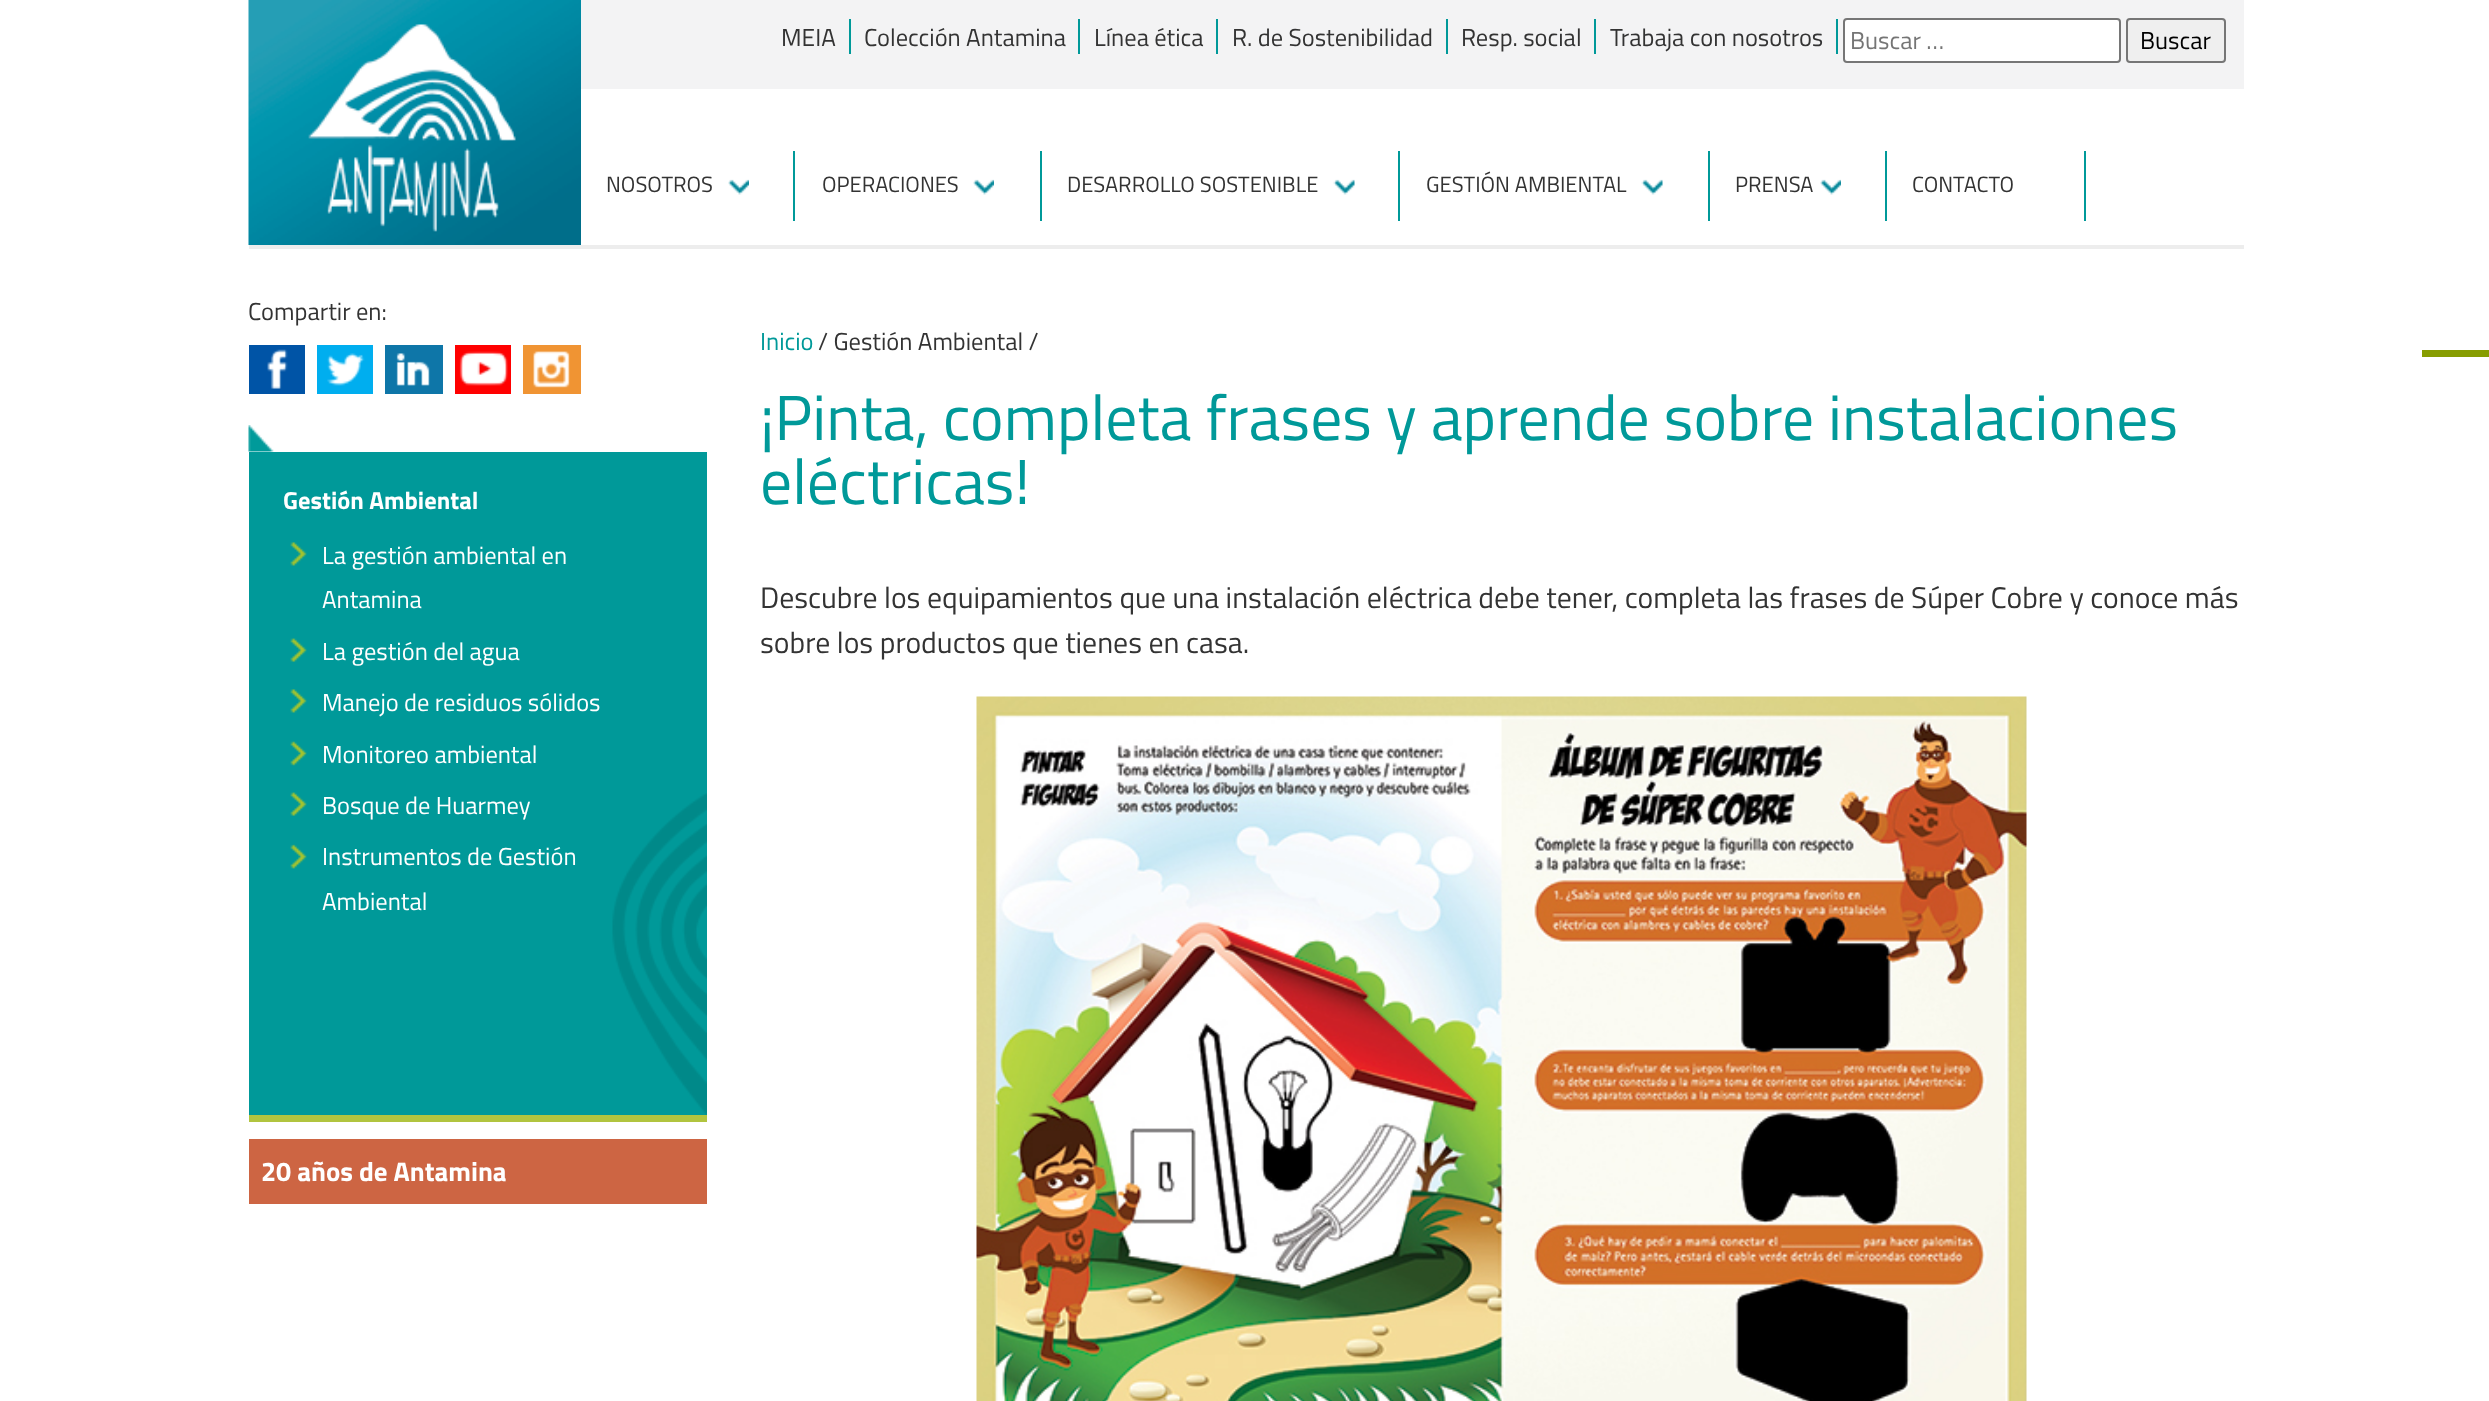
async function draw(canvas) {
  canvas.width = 2489;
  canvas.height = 1401;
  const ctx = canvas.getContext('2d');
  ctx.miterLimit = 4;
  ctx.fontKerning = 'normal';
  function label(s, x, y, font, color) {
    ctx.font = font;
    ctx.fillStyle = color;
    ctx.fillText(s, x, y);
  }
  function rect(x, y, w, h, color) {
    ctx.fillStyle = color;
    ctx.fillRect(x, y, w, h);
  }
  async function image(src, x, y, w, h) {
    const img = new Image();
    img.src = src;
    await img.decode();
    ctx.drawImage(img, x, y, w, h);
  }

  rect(0, 0, 2489, 1401, '#fff');
  rect(249, 245, 1995, 4, '#ededed');
  await image('assets/img1.png', 248, 0, 333, 245);
  rect(581, 0, 1663, 89, '#f3f3f4');
  rect(849, 19, 2, 35, '#099');
  label('MEIA', 781, 46, '24.5px Titillium Web', '#333');
  rect(1078, 19, 2, 35, '#099');
  label('Colección Antamina', 864, 46, '24.5px Titillium Web', '#333');
  rect(1216, 19, 2, 35, '#099');
  label('Línea ética', 1094, 46, '24.5px Titillium Web', '#333');
  rect(1446, 19, 2, 35, '#099');
  label('R. de Sostenibilidad', 1232, 46, '24.5px Titillium Web', '#333');
  rect(1594, 19, 2, 35, '#099');
  label('Resp. social', 1461, 46, '24.5px Titillium Web', '#333');
  rect(1836, 19, 2, 35, '#099');
  label('Trabaja con nosotros', 1610, 46, '24.5px Titillium Web', '#333');
  ctx.fillStyle = '#fff';
  ctx.beginPath();
  ctx.roundRect(1844, 19, 276, 43, 3);
  ctx.fill();
  ctx.strokeStyle = '#767676';
  ctx.lineWidth = 2;
  ctx.stroke();
  label('Buscar …', 1850, 49, '24.5px Titillium Web', '#757575');
  ctx.fillStyle = '#efefef';
  ctx.beginPath();
  ctx.roundRect(2127, 19, 98, 43, 3);
  ctx.fill();
  ctx.stroke();
  label('Buscar', 2140, 49, '24.5px Titillium Web', '#000');
  rect(793, 151, 2, 70, '#099');
  await image('assets/img2.png', 728, 179, 21, 16);
  label('NOSOTROS', 606, 192, '22px Titillium Web', '#333');
  rect(1040, 151, 2, 70, '#099');
  await image('assets/img2.png', 973, 179, 21, 16);
  label('OPERACIONES', 822, 192, '22px Titillium Web', '#333');
  rect(1398, 151, 2, 70, '#099');
  await image('assets/img3.png', 1333, 179, 22, 16);
  label('DESARROLLO SOSTENIBLE', 1067, 192, '22px Titillium Web', '#333');
  rect(1708, 151, 2, 70, '#099');
  await image('assets/img3.png', 1641, 179, 22, 16);
  label('GESTIÓN AMBIENTAL', 1426, 192, '22px Titillium Web', '#333');
  rect(1885, 151, 2, 70, '#099');
  await image('assets/img2.png', 1820, 179, 21, 16);
  label('PRENSA', 1735, 192, '22px Titillium Web', '#333');
  rect(2084, 151, 2, 70, '#099');
  label('CONTACTO', 1912, 192, '22px Titillium Web', '#333');
  label('Compartir en:', 248, 320, '24.5px Titillium Web', '#333');
  rect(249, 345, 56, 49, '#0054a6');
  await image('assets/img4.png', 267, 349, 21, 40);
  rect(317, 345, 56, 49, '#00aeef');
  await image('assets/img5.png', 327, 353, 38, 33);
  rect(385, 345, 58, 49, '#0e76a8');
  await image('assets/img6.png', 396, 353, 34, 33);
  rect(455, 345, 56, 49, '#f00');
  await image('assets/img7.png', 459, 351, 49, 35);
  rect(523, 345, 58, 49, '#f09433');
  await image('assets/img8.png', 533, 351, 37, 37);
  await image('assets/img9.png', 248, 425, 26, 27);
  rect(249, 452, 458, 663, '#099');
  await image('assets/img10.png', 612, 793, 95, 322);
  rect(249, 1115, 458, 7, '#b1c43f');
  label('Gestión Ambiental', 283, 509, 'bold 24.5px Titillium Web', '#fff');
  await image('assets/img11.png', 290, 542, 17, 24);
  label('La gestión ambiental en', 322, 564, '24.5px Titillium Web', '#fff');
  label('Antamina', 322, 608, '24.5px Titillium Web', '#fff');
  await image('assets/img12.png', 290, 638, 17, 24);
  label('La gestión del agua', 322, 660, '24.5px Titillium Web', '#fff');
  await image('assets/img11.png', 290, 689, 17, 24);
  label('Manejo de residuos sólidos', 322, 711, '24.5px Titillium Web', '#fff');
  await image('assets/img13.png', 290, 741, 17, 25);
  label('Monitoreo ambiental', 322, 763, '24.5px Titillium Web', '#fff');
  await image('assets/img12.png', 290, 792, 17, 24);
  label('Bosque de Huarmey', 322, 814, '24.5px Titillium Web', '#fff');
  await image('assets/img14.png', 290, 844, 17, 25);
  label('Instrumentos de Gestión', 322, 865, '24.5px Titillium Web', '#fff');
  label('Ambiental', 322, 910, '24.5px Titillium Web', '#fff');
  rect(249, 1139, 458, 65, '#cd6543');
  label('20 años de Antamina', 261, 1181, 'bold 27px Titillium Web', '#fff');
  label('Inicio', 760, 350, '24.5px Titillium Web', '#099');
  label('/ Gestión Ambiental /', 818, 350, '24.5px Titillium Web', '#333');
  label('¡Pinta, completa frases y aprende sobre instalaciones', 760, 440, '63.7px Titillium Web', '#099');
  label('eléctricas!', 760, 504, '63.7px Titillium Web', '#099');
  label('Descubre los equipamientos que una instalación eléctrica debe tener, completa las frases de Súper Cobre y conoce más', 760, 608, '29.75px Titillium Web', '#333');
  label('sobre los productos que tienes en casa.', 760, 653, '29.75px Titillium Web', '#333');
  await image('assets/img15.png', 976, 696, 1051, 705);
  rect(2422, 350, 67, 7, '#879d01');
}

draw(document.querySelector('canvas'));
